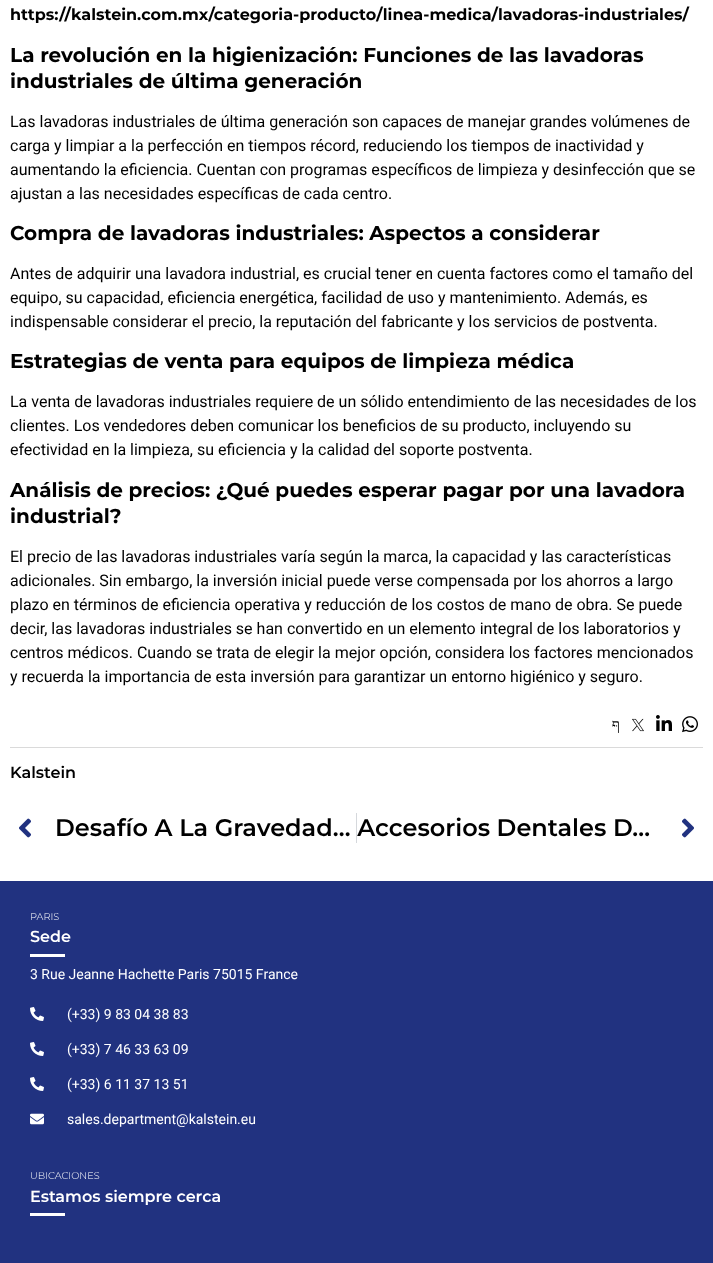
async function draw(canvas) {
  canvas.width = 713;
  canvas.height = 1263;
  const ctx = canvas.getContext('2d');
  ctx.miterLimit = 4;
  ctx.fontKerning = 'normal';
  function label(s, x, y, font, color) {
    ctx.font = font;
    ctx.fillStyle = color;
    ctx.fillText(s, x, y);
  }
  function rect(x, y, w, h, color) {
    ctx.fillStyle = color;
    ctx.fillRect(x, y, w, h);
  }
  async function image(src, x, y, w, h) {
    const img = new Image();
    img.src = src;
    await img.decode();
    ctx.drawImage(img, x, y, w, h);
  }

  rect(0, 0, 713, 1263, '#fff');
  label('https://kalstein.com.mx/categoria-producto/linea-medica/lavadoras-industriales/', 10, 20, 'bold 16px Montserrat', '#000');
  label('La revolución en la higienización: Funciones de las lavadoras', 10, 62, 'bold 20px Montserrat', '#000');
  label('industriales de última generación', 10, 88, 'bold 20px Montserrat', '#000');
  label('Las lavadoras industriales de última generación son capaces de manejar grandes volúmenes de', 10, 127, '16px Roboto', '#000');
  label('carga y limpiar a la perfección en tiempos récord, reduciendo los tiempos de inactividad y', 10, 151, '16px Roboto', '#000');
  label('aumentando la eficiencia. Cuentan con programas específicos de limpieza y desinfección que se', 10, 175, '16px Roboto', '#000');
  label('ajustan a las necesidades específicas de cada centro.', 10, 199, '16px Roboto', '#000');
  label('Compra de lavadoras industriales: Aspectos a considerar', 10, 240, 'bold 20px Montserrat', '#000');
  label('Antes de adquirir una lavadora industrial, es crucial tener en cuenta factores como el tamaño del', 10, 279, '16px Roboto', '#000');
  label('equipo, su capacidad, eficiencia energética, facilidad de uso y mantenimiento. Además, es', 10, 303, '16px Roboto', '#000');
  label('indispensable considerar el precio, la reputación del fabricante y los servicios de postventa.', 10, 327, '16px Roboto', '#000');
  label('Estrategias de venta para equipos de limpieza médica', 10, 368, 'bold 20px Montserrat', '#000');
  label('La venta de lavadoras industriales requiere de un sólido entendimiento de las necesidades de los', 10, 407, '16px Roboto', '#000');
  label('clientes. Los vendedores deben comunicar los beneficios de su producto, incluyendo su', 10, 431, '16px Roboto', '#000');
  label('efectividad en la limpieza, su eficiencia y la calidad del soporte postventa.', 10, 455, '16px Roboto', '#000');
  label('Análisis de precios: ¿Qué puedes esperar pagar por una lavadora', 10, 497, 'bold 20px Montserrat', '#000');
  label('industrial?', 10, 523, 'bold 20px Montserrat', '#000');
  label('El precio de las lavadoras industriales varía según la marca, la capacidad y las características', 10, 562, '16px Roboto', '#000');
  label('adicionales. Sin embargo, la inversión inicial puede verse compensada por los ahorros a largo', 10, 586, '16px Roboto', '#000');
  label('plazo en términos de eficiencia operativa y reducción de los costos de mano de obra. Se puede', 10, 610, '16px Roboto', '#000');
  label('decir, las lavadoras industriales se han convertido en un elemento integral de los laboratorios y', 10, 634, '16px Roboto', '#000');
  label('centros médicos. Cuando se trata de elegir la mejor opción, considera los factores mencionados', 10, 658, '16px Roboto', '#000');
  label('y recuerda la importancia de esta inversión para garantizar un entorno higiénico y seguro.', 10, 682, '16px Roboto', '#000');
  ctx.direction = 'rtl';
  label('ףּ', 620, 730, '16px Liberation Serif', '#000');
  await image('assets/img1.png', 632, 718, 12, 14);
  await image('assets/img2.png', 656, 715, 16, 16);
  await image('assets/img3.png', 682, 716, 16, 17);
  rect(10, 747, 693, 1, '#dadada');
  ctx.direction = 'ltr';
  label('Kalstein', 10, 778, '600 16px Montserrat', '#000');
  rect(356, 813, 1, 30, '#d5d8dc');
  await image('assets/img4.png', 19, 818, 12, 20);
  label('Desafío A La Gravedad… Accesorios Dentales D…', 55, 836, '600 24px Montserrat', '#000');
  await image('assets/img5.png', 682, 818, 12, 20);
  rect(0, 881, 713, 382, '#213280');
  label('PARIS', 30, 920, '300 9.75px Montserrat', '#fff');
  label('Sede', 30, 942, '600 16px Montserrat', '#fff');
  rect(30, 954, 35, 3, '#fff');
  label('3 Rue Jeanne Hachette Paris 75015 France', 30, 979, '14px Roboto', '#fff');
  await image('assets/img6.png', 30, 1007, 14, 14);
  label('(+33) 9 83 04 38 83', 67, 1019, '14px Roboto', '#fff');
  await image('assets/img6.png', 30, 1042, 14, 14);
  label('(+33) 7 46 33 63 09', 67, 1054, '14px Roboto', '#fff');
  await image('assets/img6.png', 30, 1077, 14, 14);
  label('(+33) 6 11 37 13 51', 67, 1089, '14px Roboto', '#fff');
  await image('assets/img7.png', 30, 1113, 14, 12);
  label('sales.department@kalstein.eu', 67, 1124, '14px Roboto', '#fff');
  label('UBICACIONES', 30, 1179, '300 9.75px Montserrat', '#fff');
  label('Estamos siempre cerca', 30, 1202, '600 16px Montserrat', '#fff');
  rect(30, 1213, 35, 3, '#fff');
}

draw(document.querySelector('canvas'));
